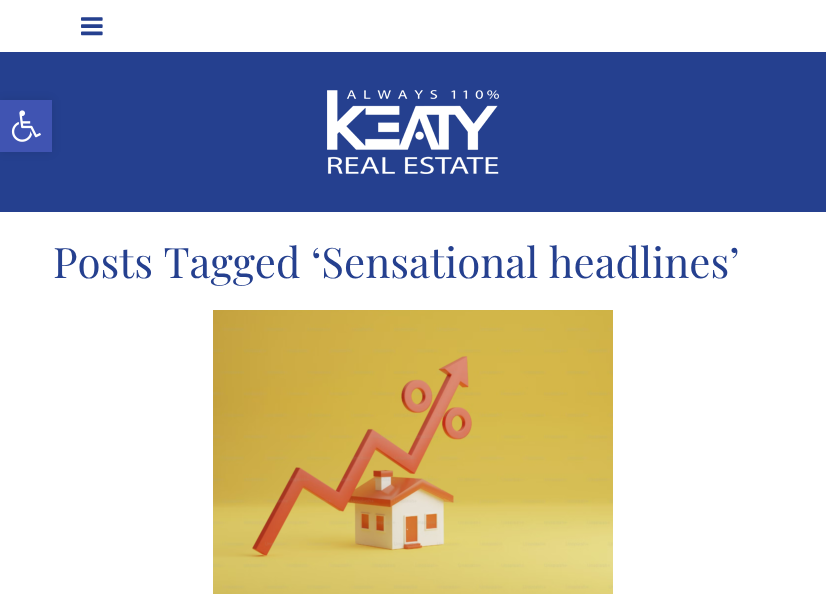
async function draw(canvas) {
  canvas.width = 826;
  canvas.height = 608;
  const ctx = canvas.getContext('2d');
  ctx.miterLimit = 4;
  ctx.fontKerning = 'none';
  function label(s, x, y, font, color) {
    ctx.font = font;
    ctx.fillStyle = color;
    ctx.fillText(s, x, y);
  }
  function rect(x, y, w, h, color) {
    ctx.fillStyle = color;
    ctx.fillRect(x, y, w, h);
  }
  async function image(src, x, y, w, h) {
    const img = new Image();
    img.src = src;
    await img.decode();
    ctx.drawImage(img, x, y, w, h);
  }

  rect(0, 0, 826, 608, '#fff');
  label('򰁰', 81, 34, '18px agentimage', '#25408f');
  rect(0, 52, 826, 160, '#25408f');
  ctx.fillStyle = '#0000001a';
  ctx.filter = 'blur(5px)';
  ctx.beginPath();
  ctx.rect(0, 100, 52, 52);
  ctx.fill();
  ctx.filter = 'none';
  rect(0, 100, 52, 52, '#4054b2');
  await image('assets/img1.png', 11, 110, 30, 32);
  await image('assets/img2.png', 327, 90, 172, 84);
  label('Posts Tagged ‘Sensational headlines’', 53, 278, '42px Playfair Display', '#25408f');
  await image('assets/img3.png', 213, 310, 400, 284);
}

draw(document.querySelector('canvas'));
